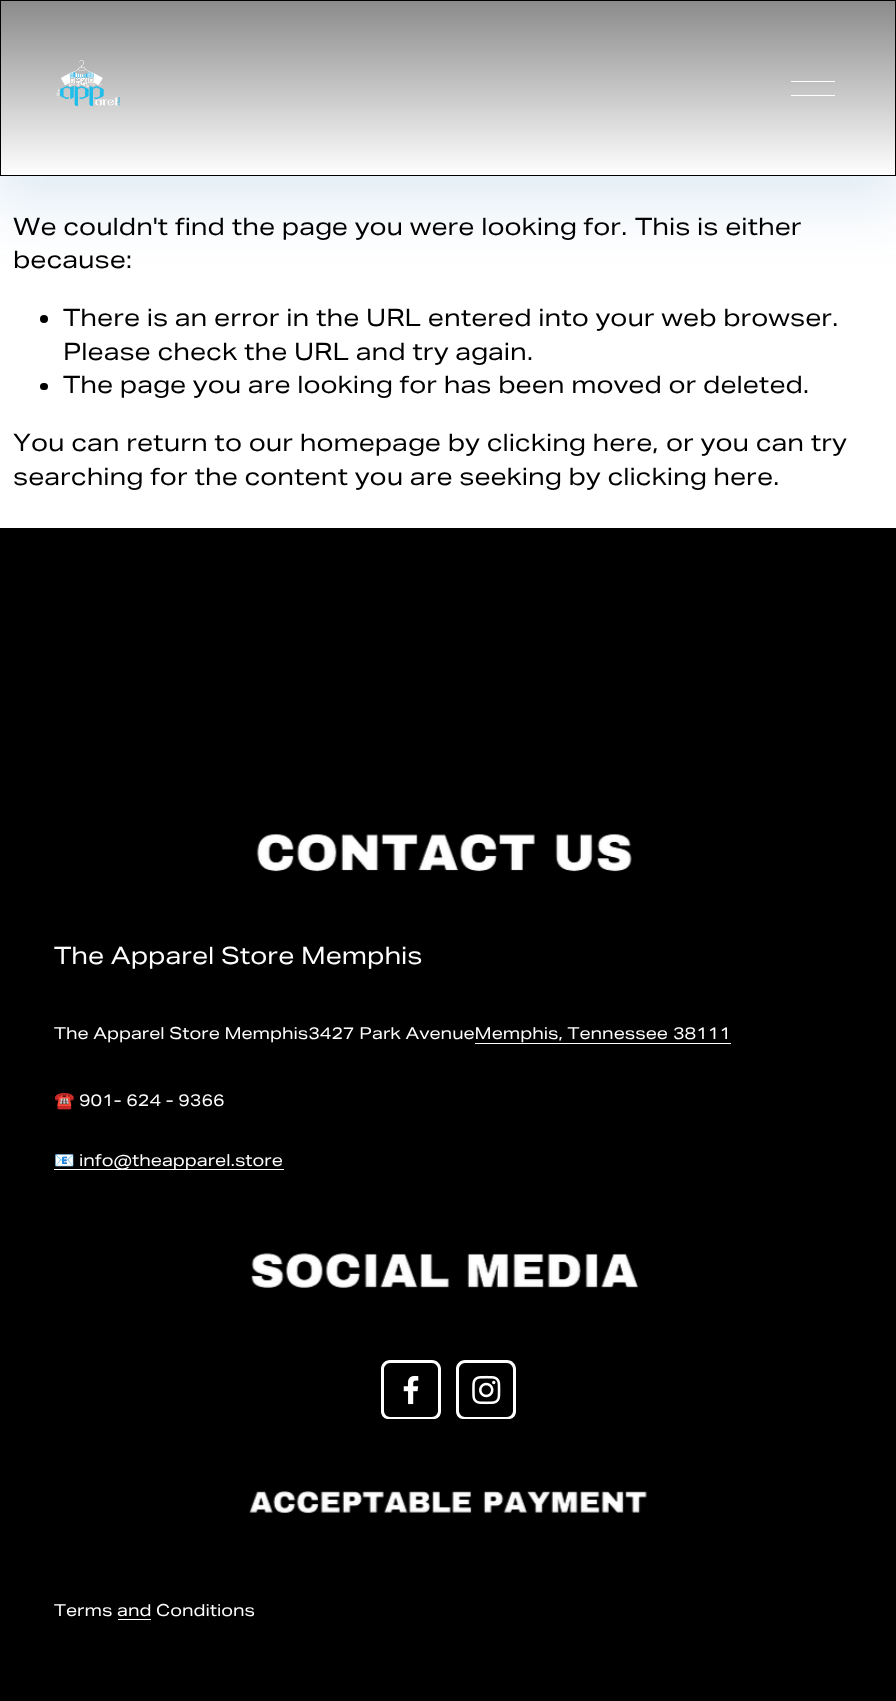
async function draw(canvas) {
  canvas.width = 896;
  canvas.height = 1701;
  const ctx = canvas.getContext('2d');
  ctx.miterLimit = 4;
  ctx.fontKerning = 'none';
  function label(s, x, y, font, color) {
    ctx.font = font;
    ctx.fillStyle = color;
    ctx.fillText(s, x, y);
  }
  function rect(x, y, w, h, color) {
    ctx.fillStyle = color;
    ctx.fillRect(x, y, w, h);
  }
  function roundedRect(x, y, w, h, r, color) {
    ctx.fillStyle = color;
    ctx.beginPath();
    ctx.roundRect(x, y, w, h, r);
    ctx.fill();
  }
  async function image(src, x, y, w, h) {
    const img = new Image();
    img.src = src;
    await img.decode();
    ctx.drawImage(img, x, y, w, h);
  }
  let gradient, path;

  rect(0, 0, 896, 1701, '#fff');
  ctx.fillStyle = '#1470af21';
  ctx.filter = 'blur(30px)';
  ctx.beginPath();
  ctx.rect(-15, 0, 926, 206);
  ctx.fill();
  ctx.filter = 'none';
  gradient = ctx.createLinearGradient(448, 0, 448, 176);
  gradient.addColorStop(0, '#8a8a8a');
  gradient.addColorStop(1, '#fff');
  ctx.fillStyle = gradient;
  ctx.fillRect(1, 1, 894, 174);
  ctx.strokeStyle = '#000';
  ctx.strokeRect(0.5, 0.5, 895, 175);
  await image('assets/img1.png', 56, 60, 65, 47);
  rect(791, 81, 44, 1, '#fff');
  rect(791, 95, 44, 1, '#fff');
  label('We couldn\'t find the page you were looking for.', 13, 235, '24.05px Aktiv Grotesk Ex', '#000');
  label('This is either', 635, 235, '24.05px Aktiv Grotesk Ex', '#000');
  label('because:', 13, 268, '24.05px Aktiv Grotesk Ex', '#000');
  ctx.beginPath();
  ctx.arc(44, 319, 4, 0, 2 * Math.PI);
  ctx.fill();
  label('There is an error in the URL entered into your web browser.', 63, 326, '24.05px Aktiv Grotesk Ex', '#000');
  label('Please check the URL and try again.', 63, 360, '24.05px Aktiv Grotesk Ex', '#000');
  roundedRect(40, 383, 8, 7, 3.5, '#000');
  label('The page you are looking for has been moved or deleted.', 63, 393, '24.05px Aktiv Grotesk Ex', '#000');
  label('You can return to our homepage by clicking here,', 13, 451, '24.05px Aktiv Grotesk Ex', '#000');
  label('or you can try', 666, 451, '24.05px Aktiv Grotesk Ex', '#000');
  label('searching for the content you are seeking by clicking here.', 13, 485, '24.05px Aktiv Grotesk Ex', '#000');
  rect(0, 528, 896, 1173, '#000');
  await image('assets/img2.png', 256, 833, 376, 39);
  label('The Apparel Store Memphis', 54, 964, '24.05px Aktiv Grotesk Ex', '#fff');
  label('The Apparel Store Memphis3427 Park AvenueMemphis, Tennessee', 54, 1039, '16.6px Aktiv Grotesk Ex', '#fff');
  label('38111', 673, 1039, '16.6px Aktiv Grotesk Ex', '#fff');
  rect(475, 1043, 256, 1, '#fff');
  ctx.save();
  path = new Path2D('M54 1089.5H842.5V1112.5H54Z');
  ctx.clip(path);
  label('☎️', 54, 1106, '16.6px Noto Color Emoji', '#fff');
  ctx.restore();
  label('901- 624 - 9366', 79, 1106, '16.6px Aktiv Grotesk Ex', '#fff');
  rect(54, 1169, 230, 1, '#fff');
  ctx.save();
  path = new Path2D('M54 1149.5H842.5V1172.5H54Z');
  ctx.clip(path);
  label('📧', 54, 1166, '16.6px Noto Color Emoji', '#fff');
  ctx.restore();
  label('info@theapparel.store', 79, 1166, '16.6px Aktiv Grotesk Ex', '#fff');
  await image('assets/img3.png', 251, 1253, 388, 35);
  path = new Path2D('M390 1360H432C437 1360 441 1364 441 1369V1411C441 1415 439 1418 435 1419H387C383 1418 381 1415 381 1411V1369C381 1364 385 1360 390 1360ZM390 1363C387 1363 384 1366 384 1369V1411C384 1414 387 1417 390 1417H432C435 1417 438 1414 438 1411V1369C438 1366 435 1363 432 1363Z');
  ctx.fill(path, 'evenodd');
  await image('assets/img4.png', 403, 1375, 16, 30);
  path = new Path2D('M465 1360H507C512 1360 516 1364 516 1369V1411C516 1415 514 1418 510 1419H462C458 1418 456 1415 456 1411V1369C456 1364 460 1360 465 1360ZM465 1363C462 1363 459 1366 459 1369V1411C459 1414 462 1417 465 1417H507C510 1417 513 1414 513 1411V1369C513 1366 510 1363 507 1363Z');
  ctx.fill(path, 'evenodd');
  await image('assets/img5.png', 472, 1375, 29, 30);
  await image('assets/img6.png', 249, 1491, 398, 23);
  label('Terms and Conditions', 54, 1616, '16.6px Aktiv Grotesk Ex', '#fff');
  rect(118, 1619, 33, 1, '#fff');
}

draw(document.querySelector('canvas'));
